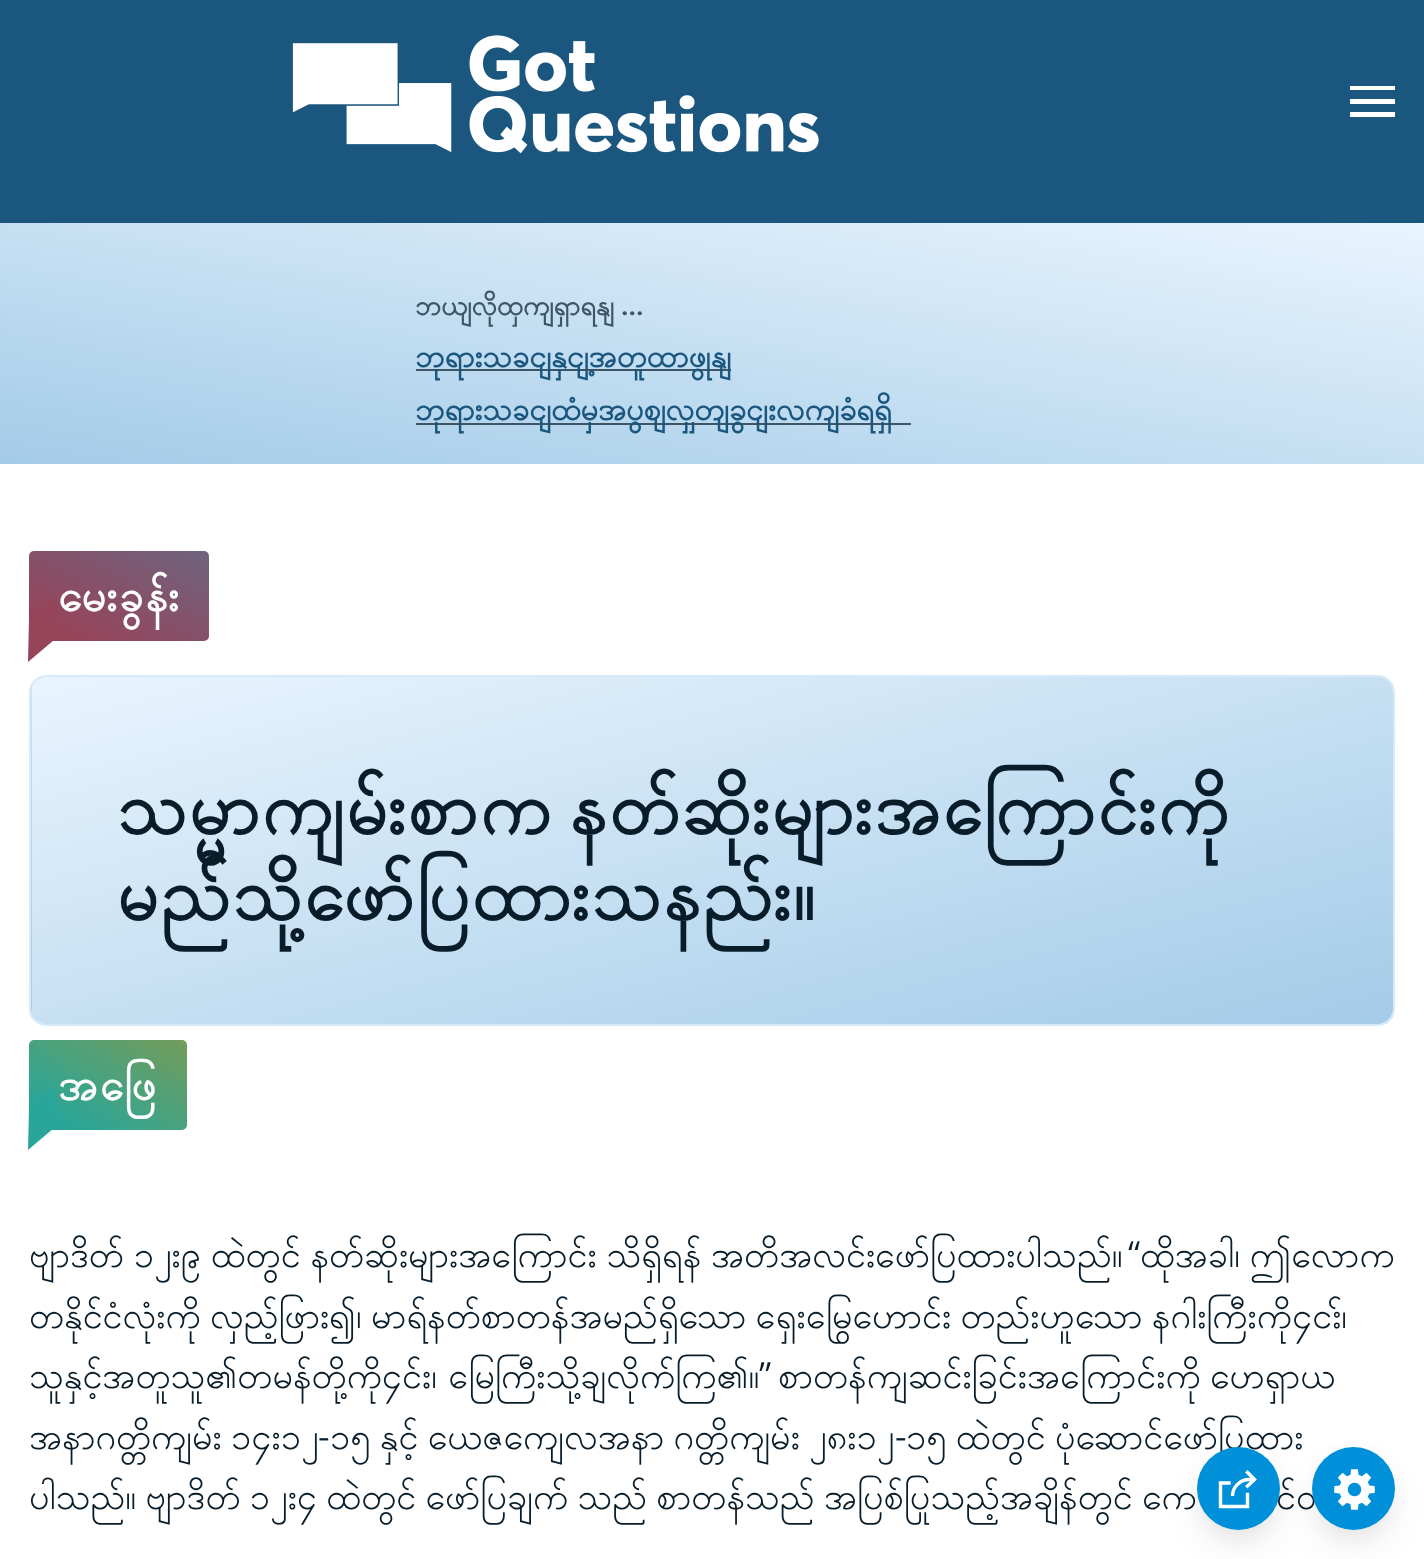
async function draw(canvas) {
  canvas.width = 1424;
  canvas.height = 1559;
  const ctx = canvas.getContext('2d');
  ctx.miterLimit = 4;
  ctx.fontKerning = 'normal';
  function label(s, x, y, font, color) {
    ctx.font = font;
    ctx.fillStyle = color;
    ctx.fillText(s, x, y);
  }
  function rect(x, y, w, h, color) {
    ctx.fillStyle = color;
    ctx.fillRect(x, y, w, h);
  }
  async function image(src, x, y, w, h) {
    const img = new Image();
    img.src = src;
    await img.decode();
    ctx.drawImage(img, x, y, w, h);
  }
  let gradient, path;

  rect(0, 0, 1424, 1559, '#fff');
  rect(0, 0, 1424, 223, '#1a567e');
  await image('assets/img1.png', 292, 35, 527, 119);
  ctx.fillStyle = '#fff';
  path = new Path2D('M1350 86H1395V90H1350ZM1350 99H1395V104H1350ZM1350 112H1395V117H1350Z');
  ctx.fill(path);
  gradient = ctx.createLinearGradient(673, 577, 752, 109);
  gradient.addColorStop(0, '#a4cbe7');
  gradient.addColorStop(1, '#e9f5ff');
  ctx.fillStyle = gradient;
  ctx.fillRect(0, 223, 1424, 241);
  label('ဘယျလိုထှကျရှာရနျ', 415, 315, 'bold 27px Padauk', '#3d5565');
  label('...', 621, 315, '600 27px Noto Sans', '#3d5565');
  rect(416, 369, 315, 2, '#3d5565');
  label('ဘုရားသခငျနှငျ့အတူထာဖွုနျ', 415, 367, 'bold 30.6px Padauk', '#1a567e');
  rect(416, 423, 495, 2, '#3d5565');
  label('ဘုရားသခငျထံမှအပွစျလှှတျခွငျးလကျခံရရှိ', 415, 420, 'bold 30.6px Padauk', '#1a567e');
  gradient = ctx.createLinearGradient(83, 668, 155, 524);
  gradient.addColorStop(0.15, '#96445a');
  gradient.addColorStop(1, '#6f637e');
  ctx.fillStyle = gradient;
  ctx.beginPath();
  ctx.roundRect(29, 551, 180, 90, 5);
  ctx.fill();
  ctx.fillStyle = '#96445a';
  path = new Path2D('M29 619L54 597V640L28 662Z');
  ctx.fill(path);
  ctx.letterSpacing = '2.25px';
  label('မေးခွန်း', 58, 611, 'bold 43px Padauk', '#fff');
  ctx.save();
  ctx.beginPath();
  ctx.roundRect(29, 675, 1366, 351, 18);
  ctx.clip();
  gradient = ctx.createLinearGradient(-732, 525, -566, 1176);
  gradient.addColorStop(0, '#e9f5ff');
  gradient.addColorStop(1, '#a4cbe7');
  ctx.fillStyle = gradient;
  ctx.fillRect(29, 677, 3, 347);
  gradient = ctx.createLinearGradient(629, 525, 795, 1176);
  gradient.addColorStop(0, '#e9f5ff');
  gradient.addColorStop(1, '#a4cbe7');
  ctx.fillStyle = gradient;
  ctx.fillRect(32, 677, 1361, 347);
  ctx.restore();
  ctx.beginPath();
  ctx.roundRect(30, 676, 1364, 349, 17);
  ctx.strokeStyle = '#d6eaf9';
  ctx.lineWidth = 2;
  ctx.stroke();
  ctx.wordSpacing = '-12px';
  label('သမ္မာကျမ်းစာက နတ်ဆိုးများအကြောင်းကို', 117, 834, 'bold 72px Padauk', '#081c2a');
  ctx.wordSpacing = '0px';
  label('မည်သို့ဖော်ပြထားသနည်း။', 117, 920, 'bold 72px Padauk', '#081c2a');
  gradient = ctx.createLinearGradient(69, 1152, 147, 1017);
  gradient.addColorStop(0.15, '#29a699');
  gradient.addColorStop(1, '#749c5a');
  ctx.fillStyle = gradient;
  ctx.beginPath();
  ctx.roundRect(29, 1040, 158, 90, 5);
  ctx.fill();
  ctx.fillStyle = '#29a699';
  path = new Path2D('M29 1108L54 1086V1128L28 1150Z');
  ctx.fill(path);
  label('အဖြေ', 58, 1100, 'bold 43px Padauk', '#fff');
  ctx.letterSpacing = '0px';
  ctx.wordSpacing = '-3.5px';
  label('ဗျာဒိတ် ၁၂း၉ ထဲတွင် နတ်ဆိုးများအကြောင်း သိရှိရန် အတိအလင်းဖော်ပြထားပါသည်။', 29, 1267, '36px Padauk', '#081c2a');
  ctx.wordSpacing = '0px';
  label('“', 1128, 1267, '300 36px Noto Sans', '#081c2a');
  ctx.wordSpacing = '-3.5px';
  label('ထိုအခါ၊ ဤလောက', 1140, 1267, '36px Padauk', '#081c2a');
  ctx.wordSpacing = '-4px';
  label('တနိုင်ငံလုံးကို လှည့်ဖြား၍၊ မာရ်နတ်စာတန်အမည်ရှိသော ရှေးမြွေဟောင်း တည်းဟူသော နဂါးကြီးကို၄ငး်၊', 29, 1328, '36px Padauk', '#081c2a');
  ctx.wordSpacing = '-2px';
  label('သူနှင့်အတူသူ၏တမန်တို့ကို၄င်း၊ မြေကြီးသို့ချလိုက်ကြ၏။', 29, 1388, '36px Padauk', '#081c2a');
  ctx.wordSpacing = '0px';
  label('”', 759, 1388, '300 36px Noto Sans', '#081c2a');
  ctx.wordSpacing = '-4px';
  label('စာတန်ကျဆင်းခြင်းအကြောင်းကို ဟေရှာယ', 778, 1388, '36px Padauk', '#081c2a');
  label('အနာဂတ္တိကျမ်း ၁၄း၁၂', 29, 1449, '36px Padauk', '#081c2a');
  ctx.wordSpacing = '0px';
  label('-', 318, 1449, '300 36px Noto Sans', '#081c2a');
  ctx.wordSpacing = '-4px';
  label('၁၅ နှင့် ယေဇကျေလအနာ ဂတ္တိကျမ်း ၂၈း၁၂', 330, 1449, '36px Padauk', '#081c2a');
  ctx.wordSpacing = '0px';
  label('-', 895, 1449, '300 36px Noto Sans', '#081c2a');
  ctx.wordSpacing = '-4px';
  label('၁၅ ထဲတွင် ပုံဆောင်ဖော်ပြထား', 906, 1449, '36px Padauk', '#081c2a');
  label('ပါသည်။ ဗျာဒိတ် ၁၂း၄ ထဲတွင် ဖော်ပြချက် သည် စာတန်သည် အပြစ်ပြုသည့်အချိန်တွင် ကေ', 29, 1509, '36px Padauk', '#081c2a');
  label('င်တ', 1276, 1509, '36px Padauk', '#081c2a');
  ctx.fillStyle = '#0000000d';
  ctx.filter = 'blur(12.5px)';
  ctx.beginPath();
  ctx.roundRect(1319, 1460, 69, 70, 34.5);
  ctx.fill();
  ctx.filter = 'none';
  ctx.fillStyle = '#0000001a';
  ctx.filter = 'blur(18px)';
  ctx.beginPath();
  ctx.roundRect(1319, 1472, 69, 69, 34.5);
  ctx.fill();
  ctx.filter = 'none';
  ctx.fillStyle = '#0090d9';
  ctx.beginPath();
  ctx.arc(1353.5, 1488.5, 41.5, 0, 2 * Math.PI);
  ctx.fill();
  ctx.fillStyle = '#0000000d';
  ctx.filter = 'blur(12.5px)';
  ctx.beginPath();
  ctx.roundRect(1204, 1460, 70, 70, 35);
  ctx.fill();
  ctx.filter = 'none';
  ctx.fillStyle = '#0000001a';
  ctx.filter = 'blur(18px)';
  ctx.beginPath();
  ctx.roundRect(1204, 1472, 70, 69, 34.5);
  ctx.fill();
  ctx.filter = 'none';
  ctx.fillStyle = '#0090d9';
  ctx.beginPath();
  ctx.arc(1238.5, 1488.5, 41.5, 0, 2 * Math.PI);
  ctx.fill();
  path = new Path2D('M1247.5 1494.5V1506.5H1220.5V1483H1229');
  ctx.strokeStyle = '#fff';
  ctx.lineWidth = 3.4;
  ctx.lineCap = 'square';
  ctx.stroke(path);
  path = new Path2D('M1232.5 1496C1232.5 1487 1240 1479.5 1249.5 1479.5H1254.5');
  ctx.lineCap = 'butt';
  ctx.stroke(path);
  path = new Path2D('M1247.5 1486L1254.5 1479.5L1247.5 1472.5');
  ctx.lineCap = 'square';
  ctx.stroke(path);
  await image('assets/img2.png', 1334, 1469, 41, 41);
}

draw(document.querySelector('canvas'));
